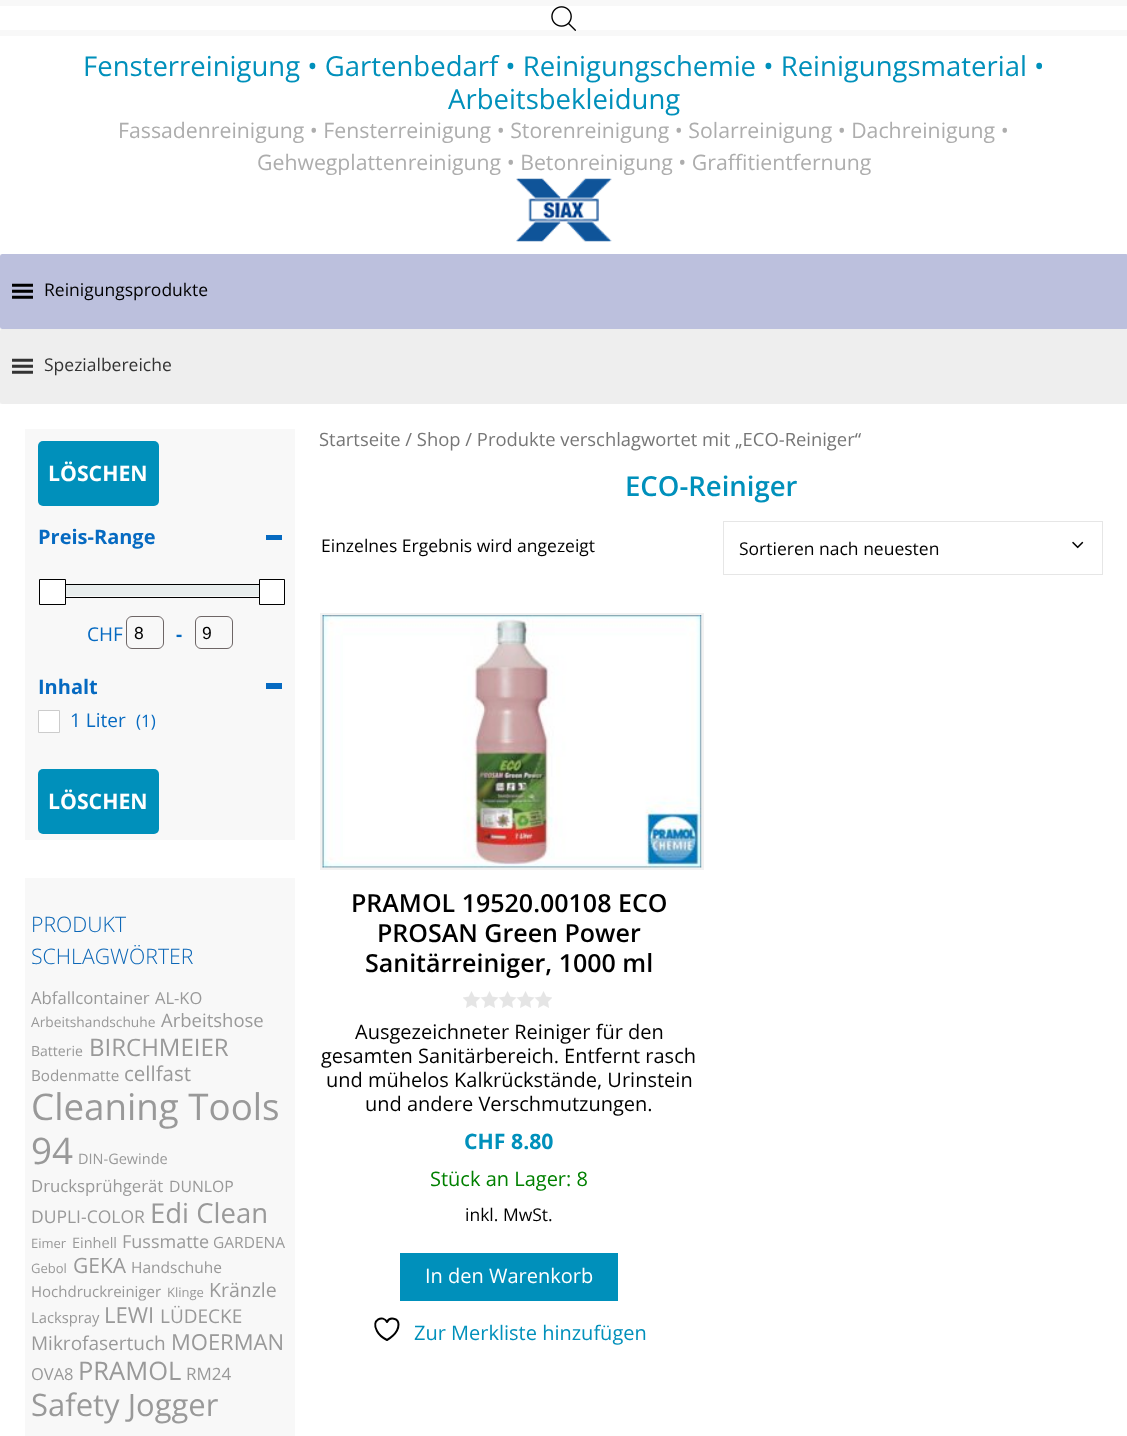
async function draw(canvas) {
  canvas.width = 1127;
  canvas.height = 1436;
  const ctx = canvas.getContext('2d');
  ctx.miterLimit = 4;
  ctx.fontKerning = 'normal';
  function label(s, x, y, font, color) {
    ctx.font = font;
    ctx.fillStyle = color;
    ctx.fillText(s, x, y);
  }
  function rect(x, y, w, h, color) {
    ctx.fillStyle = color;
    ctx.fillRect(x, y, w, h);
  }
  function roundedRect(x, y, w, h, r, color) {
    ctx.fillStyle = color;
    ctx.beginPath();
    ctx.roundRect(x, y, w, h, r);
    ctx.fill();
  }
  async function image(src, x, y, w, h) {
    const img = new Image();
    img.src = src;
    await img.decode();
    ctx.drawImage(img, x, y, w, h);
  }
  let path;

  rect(0, 0, 1127, 1436, '#f8f8f8');
  rect(0, 6, 1127, 24, '#fff');
  await image('assets/img1.png', 551, 6, 25, 25);
  rect(0, 36, 1127, 218, '#fff');
  label('Fensterreinigung • Gartenbedarf • Reinigungschemie • Reinigungsmaterial •', 83, 76, '27.5px Open Sans', '#0090bb');
  label('Arbeitsbekleidung', 448, 109, '27.5px Open Sans', '#0090bb');
  label('Fassadenreinigung • Fensterreinigung • Storenreinigung • Solarreinigung • Dachreinigung •', 118, 138, '21.25px Open Sans', '#adadad');
  label('Gehwegplattenreinigung • Betonreinigung • Graffitientfernung', 257, 170, '21.25px Open Sans', '#adadad');
  await image('assets/img2.png', 516, 178, 96, 64);
  roundedRect(0, 254, 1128, 75, 2.5, '#bcc0dd');
  await image('assets/img3.png', 12, 283, 21, 16);
  label('Reinigungsprodukte', 44, 296, '17.5px Open Sans', '#000');
  roundedRect(0, 329, 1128, 75, 2.5, '#eee');
  await image('assets/img4.png', 12, 358, 21, 16);
  label('Spezialbereiche', 44, 371, '17.5px Open Sans', '#333');
  rect(0, 404, 1127, 1032, '#fff');
  rect(25, 429, 270, 411, '#f8f8f8');
  roundedRect(38, 441, 121, 65, 5, '#0090bb');
  label('LÖSCHEN', 48, 481, 'bold 21.25px Open Sans', '#fff');
  label('Preis-Range', 38, 544, 'bold 20px Open Sans', '#066ac1');
  rect(266, 535, 16, 5, '#066ac1');
  ctx.strokeStyle = '#000';
  ctx.strokeRect(50.5, 584.5, 222, 13);
  ctx.fillStyle = '#fff';
  ctx.beginPath();
  ctx.rect(39.5, 579.5, 26, 25);
  ctx.fill();
  ctx.stroke();
  rect(66, 585, 193, 11, '#e8eded');
  ctx.fillStyle = '#fff';
  ctx.beginPath();
  ctx.rect(259.5, 579.5, 25, 25);
  ctx.fill();
  ctx.stroke();
  label('CHF', 87, 641, '19px Open Sans', '#066ac1');
  ctx.beginPath();
  ctx.roundRect(126.5, 616.5, 37, 32, 5.5);
  ctx.strokeStyle = '#6e6666';
  ctx.stroke();
  label('8', 134, 639, '17.5px Liberation Sans', '#000');
  label('-', 176, 641, 'bold 19px Open Sans', '#066ac1');
  ctx.beginPath();
  ctx.roundRect(195.5, 616.5, 37, 32, 5.5);
  ctx.stroke();
  label('9', 202, 639, '17.5px Liberation Sans', '#000');
  label('Inhalt', 38, 694, 'bold 20px Open Sans', '#066ac1');
  rect(266, 683, 16, 6, '#066ac1');
  ctx.fillStyle = '#fff';
  ctx.beginPath();
  ctx.rect(38.5, 710.5, 21, 22);
  ctx.fill();
  ctx.strokeStyle = '#ccc';
  ctx.stroke();
  label('1 Liter', 70, 727, '19px Open Sans', '#066ac1');
  label('(1)', 136, 727, '17px Open Sans', '#066ac1');
  roundedRect(38, 769, 121, 65, 5, '#0090bb');
  label('LÖSCHEN', 48, 809, 'bold 21.25px Open Sans', '#fff');
  rect(25, 878, 270, 558, '#f8f8f8');
  label('PRODUKT', 31, 932, '300 21.25px Open Sans', '#0c67b7');
  label('SCHLAGWÖRTER', 31, 964, '300 21.25px Open Sans', '#0c67b7');
  label('Abfallcontainer', 31, 1004, '16.75px Open Sans', '#999');
  label('AL-KO', 155, 1004, '16.5px Open Sans', '#999');
  label('Arbeitshandschuhe', 31, 1027, '13.75px Open Sans', '#999');
  label('Arbeitshose', 161, 1027, '18.5px Open Sans', '#999');
  label('Batterie', 31, 1056, '14px Open Sans', '#999');
  label('BIRCHMEIER', 89, 1056, '24px Open Sans', '#999');
  label('Bodenmatte', 31, 1081, '15.25px Open Sans', '#999');
  label('cellfast', 124, 1081, '20.5px Open Sans', '#999');
  label('Cleaning Tools', 31, 1120, '36.75px Open Sans', '#999');
  label('94', 31, 1164, '36.75px Open Sans', '#999');
  label('DIN-Gewinde', 78, 1164, '14.5px Open Sans', '#999');
  label('Drucksprühgerät', 31, 1192, '16.75px Open Sans', '#999');
  label('DUNLOP', 169, 1192, '15.75px Open Sans', '#999');
  label('DUPLI-COLOR', 31, 1223, '17.5px Open Sans', '#999');
  label('Edi Clean', 150, 1223, '27.5px Open Sans', '#999');
  label('Eimer', 31, 1248, '13px Open Sans', '#999');
  label('Einhell', 72, 1248, '14.5px Open Sans', '#999');
  label('Fussmatte', 122, 1248, '18px Open Sans', '#999');
  label('GARDENA', 213, 1248, '15.5px Open Sans', '#999');
  label('Gebol', 31, 1273, '13px Open Sans', '#999');
  label('GEKA', 73, 1273, '21px Open Sans', '#999');
  label('Handschuhe', 131, 1273, '15.5px Open Sans', '#999');
  label('Hochdruckreiniger', 31, 1297, '15px Open Sans', '#999');
  label('Klinge', 167, 1297, '13px Open Sans', '#999');
  label('Kränzle', 209, 1297, '19.5px Open Sans', '#999');
  label('Lackspray', 31, 1323, '14.75px Open Sans', '#999');
  label('LEWI', 104, 1323, '22px Open Sans', '#999');
  label('LÜDECKE', 160, 1323, '19px Open Sans', '#999');
  label('Mikrofasertuch', 31, 1350, '19px Open Sans', '#999');
  label('MOERMAN', 171, 1350, '22px Open Sans', '#999');
  label('OVA8', 31, 1380, '16.5px Open Sans', '#999');
  label('PRAMOL', 78, 1380, '25.5px Open Sans', '#999');
  label('RM24', 186, 1380, '17px Open Sans', '#999');
  label('Safety Jogger', 31, 1416, '31px Open Sans', '#999');
  label('Startseite / Shop / Produkte verschlagwortet mit „ECO-Reiniger“', 319, 446, '18.4px Open Sans', '#767676');
  label('ECO-Reiniger', 625, 496, '600 27.5px Open Sans', '#0090bb');
  label('Einzelnes Ergebnis wird angezeigt', 321, 552, '17.5px Open Sans', '#000');
  ctx.strokeStyle = '#e6e6e6';
  ctx.strokeRect(723.5, 521.5, 379, 53);
  label('Sortieren nach neuesten', 739, 555, '17.5px Open Sans', '#000');
  await image('assets/img5.png', 1072, 541, 12, 8);
  ctx.strokeStyle = '#f2f2f2';
  ctx.lineWidth = 3;
  ctx.strokeRect(321.5, 614.5, 381, 254);
  await image('assets/img6.png', 322, 615, 380, 253);
  label('PRAMOL 19520.00108 ECO', 351, 912, '600 25px Open Sans', '#000');
  label('PROSAN Green Power', 377, 942, '600 25px Open Sans', '#000');
  label('Sanitärreiniger, 1000 ml', 365, 972, '600 25px Open Sans', '#000');
  await image('assets/img7.png', 463, 991, 89, 17);
  label('Ausgezeichneter Reiniger für den', 355, 1039, '20px Open Sans', '#000');
  label('gesamten Sanitärbereich. Entfernt rasch', 321, 1063, '20px Open Sans', '#000');
  label('und mühelos Kalkrückstände, Urinstein', 326, 1087, '20px Open Sans', '#000');
  label('und andere Verschmutzungen.', 365, 1111, '20px Open Sans', '#000');
  label('CHF 8.80', 464, 1149, 'bold 21.25px Open Sans', '#0090bb');
  label('Stück an Lager: 8', 430, 1186, '20px Open Sans', '#008000');
  label('inkl. MwSt.', 465, 1221, '17.5px Open Sans', '#000');
  rect(400, 1253, 218, 48, '#0090bb');
  label('In den Warenkorb', 425, 1283, '20px Open Sans', '#fff');
  path = new Path2D('M398.5 1324.5C398.5 1318 389.5 1316.5 387 1322C383.5 1314.5 370.5 1319.5 377 1331C379 1335 383 1338 387 1340C387 1340 398.5 1334 398.5 1324.5Z');
  ctx.strokeStyle = '#000';
  ctx.lineWidth = 2;
  ctx.lineCap = 'round';
  ctx.lineJoin = 'round';
  ctx.stroke(path);
  label('Zur Merkliste hinzufügen', 414, 1340, '20px Open Sans', '#0090bb');
}

draw(document.querySelector('canvas'));
